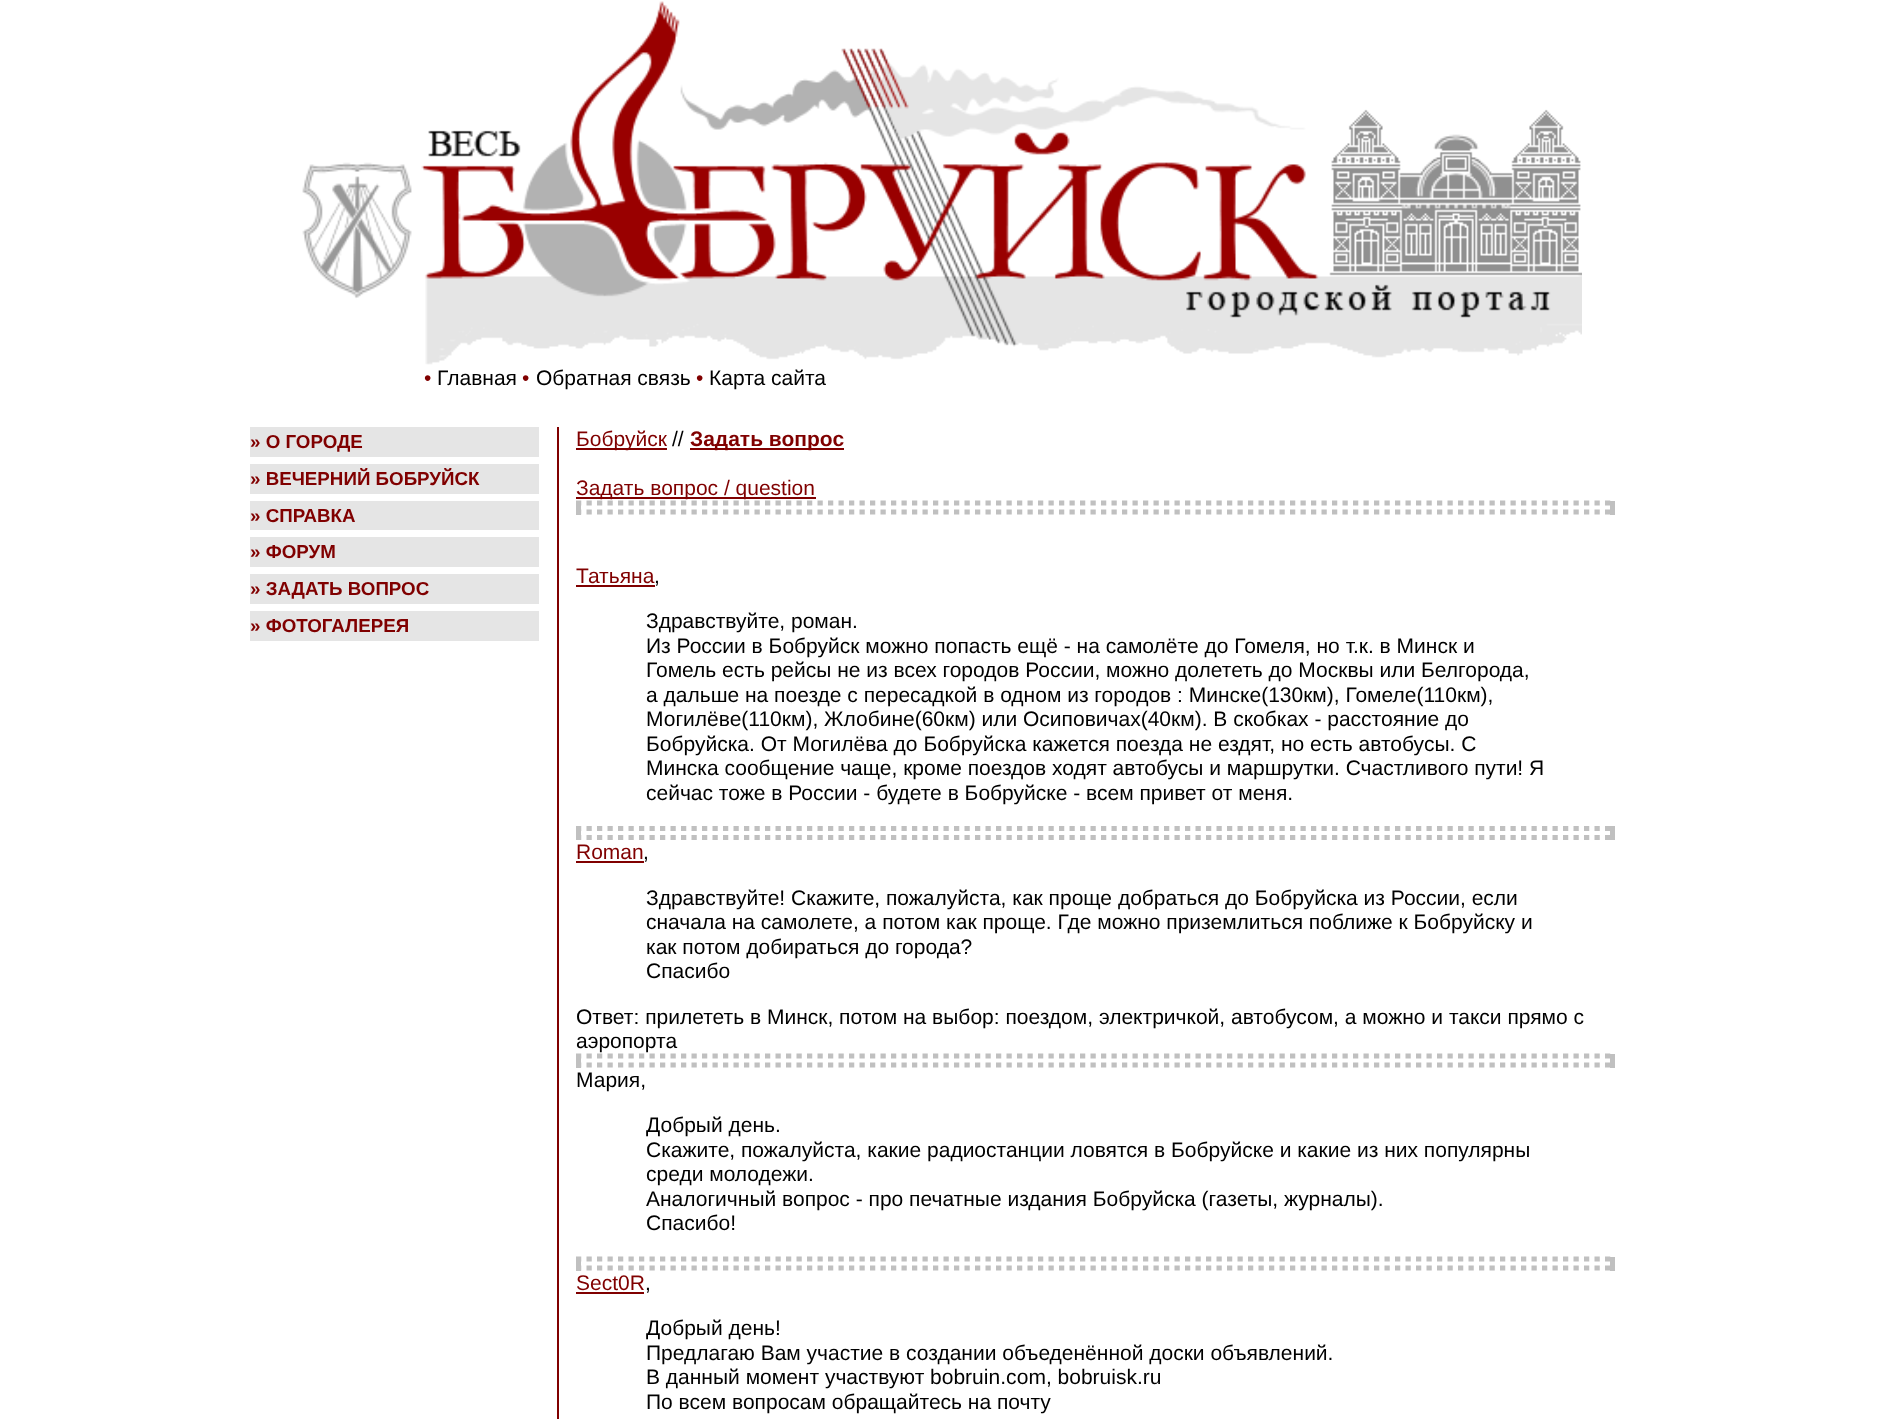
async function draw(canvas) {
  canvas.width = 1883;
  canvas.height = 1419;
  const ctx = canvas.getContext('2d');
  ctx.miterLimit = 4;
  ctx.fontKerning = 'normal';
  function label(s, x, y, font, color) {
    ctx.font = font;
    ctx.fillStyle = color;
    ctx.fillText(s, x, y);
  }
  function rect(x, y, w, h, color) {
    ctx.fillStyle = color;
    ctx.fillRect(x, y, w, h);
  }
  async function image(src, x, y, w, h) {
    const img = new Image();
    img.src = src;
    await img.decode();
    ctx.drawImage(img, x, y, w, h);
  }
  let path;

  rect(0, 0, 1883, 1419, '#fff');
  await image('assets/img1.png', 302, 1, 1280, 364);
  label('•', 424, 385, '21px Liberation Sans', '#800000');
  label('Главная', 437, 385, '21px Liberation Sans', '#000');
  label('•', 522, 385, '21px Liberation Sans', '#800000');
  label('Обратная связь', 536, 385, '21px Liberation Sans', '#000');
  label('•', 696, 385, '21px Liberation Sans', '#800000');
  label('Карта сайта', 709, 385, '21px Liberation Sans', '#000');
  rect(557, 427, 2, 992, '#800000');
  rect(250, 427, 289, 30, '#e5e5e5');
  label('» О ГОРОДЕ', 250, 448, 'bold 18.75px Liberation Sans', '#800000');
  rect(250, 464, 289, 30, '#e5e5e5');
  label('» ВЕЧЕРНИЙ БОБРУЙСК', 250, 485, 'bold 18.75px Liberation Sans', '#800000');
  rect(250, 501, 289, 29, '#e5e5e5');
  label('» СПРАВКА', 250, 522, 'bold 18.75px Liberation Sans', '#800000');
  rect(250, 537, 289, 30, '#e5e5e5');
  label('» ФОРУМ', 250, 558, 'bold 18.75px Liberation Sans', '#800000');
  rect(250, 574, 289, 30, '#e5e5e5');
  label('» ЗАДАТЬ ВОПРОС', 250, 595, 'bold 18.75px Liberation Sans', '#800000');
  rect(250, 611, 289, 30, '#e5e5e5');
  label('» ФОТОГАЛЕРЕЯ', 250, 632, 'bold 18.75px Liberation Sans', '#800000');
  rect(576, 448, 91, 2, '#800000');
  label('Бобруйск', 576, 446, '21px Liberation Sans', '#800000');
  label('//', 672, 446, '21px Liberation Sans', '#000');
  rect(690, 448, 154, 2, '#800000');
  label('Задать вопрос', 690, 446, 'bold 21px Liberation Sans', '#800000');
  rect(576, 497, 240, 2, '#800000');
  label('Задать вопрос / question', 576, 495, '21px Liberation Sans', '#800000');
  path = new Path2D('M576 503H1615');
  ctx.strokeStyle = '#c0c0c0';
  ctx.lineWidth = 5.2;
  ctx.setLineDash([5.25, 5.25]);
  ctx.stroke(path);
  rect(1610, 501, 5, 14, '#c0c0c0');
  path = new Path2D('M576 512H1615');
  ctx.stroke(path);
  rect(576, 501, 5, 14, '#c0c0c0');
  label('Татьяна', 576, 583, '21px Liberation Sans', '#800000');
  rect(576, 585, 79, 2, '#800000');
  label(',', 654, 583, '21px Liberation Sans', '#000');
  label('Здравствуйте, роман.', 646, 628, '21px Liberation Sans', '#000');
  label('Из России в Бобруйск можно попасть ещё - на самолёте до Гомеля, но т.к. в Минск и', 646, 653, '21px Liberation Sans', '#000');
  label('Гомель есть рейсы не из всех городов России, можно долететь до Москвы или Белгорода,', 646, 677, '21px Liberation Sans', '#000');
  label('а дальше на поезде с пересадкой в одном из городов : Минске(130км), Гомеле(110км),', 646, 702, '21px Liberation Sans', '#000');
  label('Могилёве(110км), Жлобине(60км) или Осиповичах(40км). В скобках - расстояние до', 646, 726, '21px Liberation Sans', '#000');
  label('Бобруйска. От Могилёва до Бобруйска кажется поезда не ездят, но есть автобусы. С', 646, 751, '21px Liberation Sans', '#000');
  label('Минска сообщение чаще, кроме поездов ходят автобусы и маршрутки. Счастливого пути! Я', 646, 775, '21px Liberation Sans', '#000');
  label('сейчас тоже в России - будете в Бобруйске - всем привет от меня.', 646, 800, '21px Liberation Sans', '#000');
  path = new Path2D('M576 828.5H1615');
  ctx.stroke(path);
  rect(1610, 826, 5, 14, '#c0c0c0');
  path = new Path2D('M576 837.5H1615');
  ctx.stroke(path);
  rect(576, 826, 5, 14, '#c0c0c0');
  label('Roman', 576, 859, '21px Liberation Sans', '#800000');
  rect(576, 861, 68, 2, '#800000');
  label(',', 643, 859, '21px Liberation Sans', '#000');
  label('Здравствуйте! Скажите, пожалуйста, как проще добраться до Бобруйска из России, если', 646, 905, '21px Liberation Sans', '#000');
  label('сначала на самолете, а потом как проще. Где можно приземлиться поближе к Бобруйску и', 646, 929, '21px Liberation Sans', '#000');
  label('как потом добираться до города?', 646, 954, '21px Liberation Sans', '#000');
  label('Спасибо', 646, 978, '21px Liberation Sans', '#000');
  label('Ответ: прилететь в Минск, потом на выбор: поездом, электричкой, автобусом, а можно и такси прямо с', 576, 1024, '21px Liberation Sans', '#000');
  label('аэропорта', 576, 1048, '21px Liberation Sans', '#000');
  path = new Path2D('M576 1056H1615');
  ctx.stroke(path);
  rect(1610, 1054, 5, 14, '#c0c0c0');
  path = new Path2D('M576 1065H1615');
  ctx.stroke(path);
  rect(576, 1054, 5, 14, '#c0c0c0');
  label('Мария,', 576, 1087, '21px Liberation Sans', '#000');
  label('Добрый день.', 646, 1132, '21px Liberation Sans', '#000');
  label('Скажите, пожалуйста, какие радиостанции ловятся в Бобруйске и какие из них популярны', 646, 1157, '21px Liberation Sans', '#000');
  label('среди молодежи.', 646, 1181, '21px Liberation Sans', '#000');
  label('Аналогичный вопрос - про печатные издания Бобруйска (газеты, журналы).', 646, 1206, '21px Liberation Sans', '#000');
  label('Спасибо!', 646, 1230, '21px Liberation Sans', '#000');
  path = new Path2D('M576 1259H1615');
  ctx.stroke(path);
  rect(1610, 1257, 5, 14, '#c0c0c0');
  path = new Path2D('M576 1268H1615');
  ctx.stroke(path);
  rect(576, 1257, 5, 14, '#c0c0c0');
  label('Sect0R', 576, 1290, '21px Liberation Sans', '#800000');
  rect(576, 1292, 68, 2, '#800000');
  label(',', 645, 1290, '21px Liberation Sans', '#000');
  label('Добрый день!', 646, 1335, '21px Liberation Sans', '#000');
  label('Предлагаю Вам участие в создании объеденённой доски объявлений.', 646, 1360, '21px Liberation Sans', '#000');
  label('В данный момент участвуют bоbruin.соm, bоbruisk.ru', 646, 1384, '21px Liberation Sans', '#000');
  label('По всем вопросам обращайтесь на почту', 646, 1409, '21px Liberation Sans', '#000');
}

draw(document.querySelector('canvas'));
